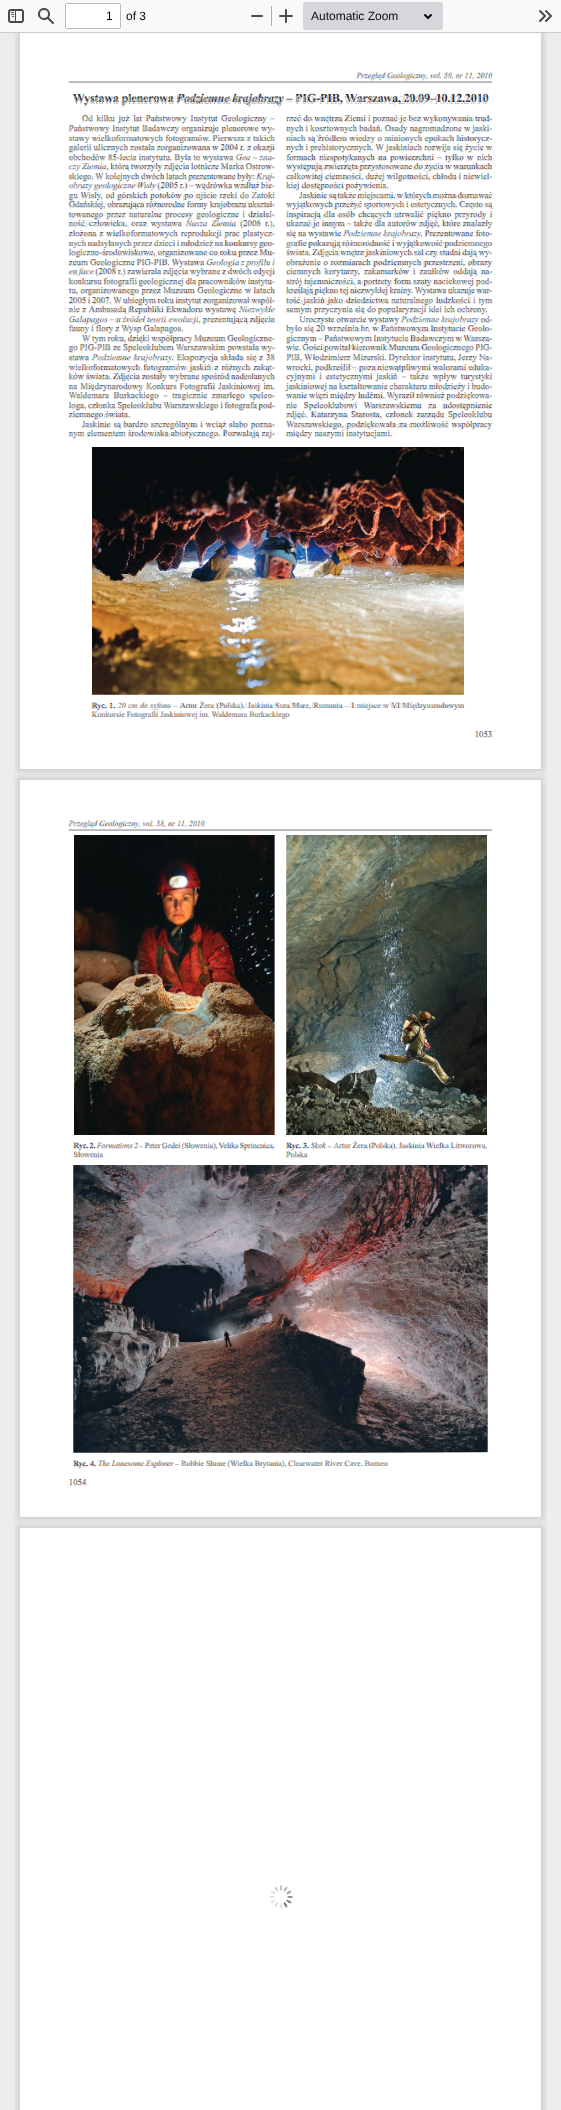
async function draw(canvas) {
  canvas.width = 561;
  canvas.height = 2110;
  const ctx = canvas.getContext('2d');
  ctx.miterLimit = 4;
  ctx.fontKerning = 'normal';
  function label(s, x, y, font, color) {
    ctx.font = font;
    ctx.fillStyle = color;
    ctx.fillText(s, x, y);
  }
  function rect(x, y, w, h, color) {
    ctx.fillStyle = color;
    ctx.fillRect(x, y, w, h);
  }
  function roundedRect(x, y, w, h, r, color) {
    ctx.fillStyle = color;
    ctx.beginPath();
    ctx.roundRect(x, y, w, h, r);
    ctx.fill();
  }
  async function image(src, x, y, w, h) {
    const img = new Image();
    img.src = src;
    await img.decode();
    ctx.drawImage(img, x, y, w, h);
  }

  rect(0, 0, 561, 2110, '#ededf0');
  rect(0, 32, 561, 1, '#ccc');
  rect(0, 0, 561, 32, '#f9f9fa');
  await image('assets/img1.png', 8, 9, 16, 14);
  await image('assets/img2.png', 38, 8, 16, 16);
  ctx.fillStyle = '#fff';
  ctx.beginPath();
  ctx.roundRect(65.5, 3.5, 55, 25, 1.5);
  ctx.fill();
  ctx.strokeStyle = '#bbbbbc';
  ctx.stroke();
  label('1', 106, 20, '12px Liberation Sans', '#060606');
  label('of 3', 126, 20, '12px Liberation Sans', '#0c0c0d');
  await image('assets/img3.png', 251, 15, 12, 2);
  rect(271, 6, 1, 20, '#aeaeaf');
  await image('assets/img4.png', 279, 9, 14, 14);
  roundedRect(303, 2, 140, 28, 2, '#d7d7db');
  label('Automatic Zoom', 311, 20, '12px Liberation Sans', '#0c0c0d');
  await image('assets/img5.png', 424, 14, 8, 5);
  await image('assets/img6.png', 539, 10, 13, 12);
  rect(20, 33, 521, 736, '#fff');
  await image('assets/img7.png', 14, 33, 533, 742);
  await image('assets/img8.png', 68, 72, 426, 665);
  ctx.letterSpacing = '0.05px';
  label('Przegl¹d Geologiczny, vol. 58, nr 11, 2010', 356, 79, '7.9px Liberation Serif', '#cfd1d5');
  ctx.letterSpacing = '0.12px';
  label('Wystawa plenerowa', 73, 104, '12.25px Liberation Serif', '#b8b4b4');
  ctx.letterSpacing = '-0.7px';
  label('Podziemne krajobrazy', 176, 104, '12.25px Liberation Sans', '#b2b3b6');
  ctx.letterSpacing = '-0.03px';
  label('– PIG-PIB, Warszawa, 20.09–10.12.2010', 286, 104, '12.25px Liberation Serif', '#c8c5c4');
  ctx.letterSpacing = '-0.05px';
  label('Od  kilku  ju¿  lat  Pañstwowy  Instytut  Geologiczny  –', 82, 122, '8.75px Liberation Serif', '#c4c5cc');
  ctx.letterSpacing = '0px';
  label('rzeæ do wnêtrza Ziemi i poznaæ je bez wykonywania trud-', 286, 122, '8.75px Liberation Serif', '#cccbcc');
  ctx.letterSpacing = '0.1px';
  label('Pañstwowy Instytut Badawczy organizuje plenerowe wy-', 69, 132, '8.75px Liberation Serif', '#c8c5c4');
  ctx.letterSpacing = '0.05px';
  label('nych i kosztownych badañ. Osady nagromadzone w jaski', 286, 132, '8.75px Liberation Serif', '#c8c5c4');
  ctx.letterSpacing = '0px';
  label('-', 489, 132, '8.75px Liberation Serif', '#e3e4e8');
  ctx.letterSpacing = '0.05px';
  label('stawy wielkoformatowych fotogramów. Pierwsza z takich', 69, 141, '8.75px Liberation Serif', '#b2b3b6');
  label('niach s¹ Ÿród³em wiedzy o minionych epokach historycz', 286, 141, '8.75px Liberation Serif', '#b5b8be');
  ctx.letterSpacing = '0px';
  label('galerii ulicznych zosta³a zorganizowana w 2004 r. z okazji', 69, 151, '8.75px Liberation Serif', '#c8c5c4');
  ctx.letterSpacing = '0.05px';
  label('nych i prehistorycznych. W jaskiniach rozwija siê ¿ycie w', 286, 151, '8.75px Liberation Serif', '#c8c5c4');
  label('obchodów 85-lecia instytutu. By³a to wystawa', 69, 161, '8.75px Liberation Serif', '#c8c5c4');
  ctx.letterSpacing = '0.12px';
  label('Gea – zna', 236, 161, '8.75px Liberation Serif', '#cfd1d5');
  ctx.letterSpacing = '0px';
  label('-', 272, 161, '8.75px Liberation Serif', '#d6d9dd');
  ctx.letterSpacing = '-0.07px';
  label('formach  niespotykanych  na  powierzchni  –  tylko  w  nich', 286, 161, '8.75px Liberation Serif', '#c8c5c4');
  ctx.letterSpacing = '-0.15px';
  label('czy Ziemia', 69, 170, '8.75px Liberation Serif', '#cfd1d5');
  ctx.letterSpacing = '0px';
  label(', któr¹ tworzy³y zdjêcia lotnicze Marka Ostrow-', 107, 170, '8.75px Liberation Serif', '#c8c5c4');
  label('wystêpuj¹ zwierzêta przystosowane do ¿ycia w warunkach', 286, 170, '8.75px Liberation Serif', '#c8c5c4');
  ctx.letterSpacing = '-0.1px';
  label('skiego. W kolejnych dwóch', 69, 180, '8.75px Liberation Serif', '#c8c5c4');
  ctx.letterSpacing = '-0.05px';
  label('latach', 166, 180, '8.75px Liberation Serif', '#bebcc2');
  ctx.letterSpacing = '-0.15px';
  label('prezentowane by³y:', 188, 180, '8.75px Liberation Serif', '#c8c5c4');
  ctx.letterSpacing = '0px';
  label('Kraj-', 256, 180, '8.75px Liberation Serif', '#c4c5cc');
  ctx.letterSpacing = '-0.08px';
  label('ca³kowitej ciemnoœci, du¿ej wilgotnoœci, ch³odu i niewiel', 286, 180, '8.75px Liberation Serif', '#cccbcc');
  ctx.letterSpacing = '0px';
  label('-', 489, 180, '8.75px Liberation Serif', '#e3e4e8');
  ctx.letterSpacing = '-0.2px';
  label('obrazy geologiczne Wis³y', 69, 189, '8.75px Liberation Serif', '#cfd1d5');
  ctx.letterSpacing = '-0.05px';
  label('(2005 r.) – wêdrówka wzd³u¿ bie', 157, 189, '8.75px Liberation Serif', '#c8c5c4');
  ctx.letterSpacing = '0px';
  label('-', 272, 189, '8.75px Liberation Serif', '#e3e4e8');
  ctx.letterSpacing = '-0.05px';
  label('kiej dostêpnoœci po¿ywienia.', 286, 189, '8.75px Liberation Serif', '#cccbcc');
  ctx.letterSpacing = '0.08px';
  label('gu Wis³y, od górskich potoków po ujœcie rzeki do Zatoki', 69, 199, '8.75px Liberation Serif', '#cccbcc');
  ctx.letterSpacing = '-0.13px';
  label('Jaskinie s¹ tak¿e miejscami, w których mo¿na doznawaæ', 299, 199, '8.75px Liberation Serif', '#cccbcc');
  ctx.letterSpacing = '-0.1px';
  label('Gdañskiej, obrazuj¹ca ró¿norodne formy krajobrazu ukszta³-', 69, 208, '8.75px Liberation Serif', '#c8c5c4');
  ctx.letterSpacing = '-0.05px';
  label('wyj¹tkowych prze¿yæ sportowych i estetycznych. Czêsto s¹', 286, 208, '8.75px Liberation Serif', '#cfd1d5');
  ctx.letterSpacing = '-0.07px';
  label('towanego  przez  naturalne  procesy  geologiczne  i  dzia³al-', 69, 218, '8.75px Liberation Serif', '#c8c5c4');
  label('inspiracj¹  dla  osób  chc¹cych  utrwaliæ  piêkno  przyrody  i', 286, 218, '8.75px Liberation Serif', '#cccbcc');
  ctx.letterSpacing = '-0.15px';
  label('noœæ  cz³owieka,  oraz  wystawa', 69, 227, '8.75px Liberation Serif', '#cfd1d5');
  ctx.letterSpacing = '0px';
  label('Nasza  Ziemia', 186, 227, '8.75px Liberation Serif', '#cccbcc');
  label('(2006  r.),', 240, 227, '8.75px Liberation Serif', '#c8c5c4');
  label('ukazaæ je innym – tak¿e dla autorów zdjêæ, które znalaz³y', 286, 227, '8.75px Liberation Serif', '#c4c5cc');
  ctx.letterSpacing = '0.12px';
  label('z³o¿ona z wielkoformatowych reprodukcji prac plastycz', 69, 237, '8.75px Liberation Serif', '#c8c5c4');
  ctx.letterSpacing = '0px';
  label('-', 272, 237, '8.75px Liberation Serif', '#e3e4e8');
  ctx.letterSpacing = '-0.05px';
  label('siê na wystawie', 286, 237, '8.75px Liberation Serif', '#c8c5c4');
  label('Podziemne krajobrazy', 343, 237, '8.75px Liberation Serif', '#cfd1d5');
  label('. Prezentowane foto-', 420, 237, '8.75px Liberation Serif', '#c8c5c4');
  label('nych nadsy³anych przez dzieci i m³odzie¿ na konkursy geo', 69, 246, '8.75px Liberation Serif', '#b8b4b4');
  ctx.letterSpacing = '-0.15px';
  label('grafie pokazuj¹ ró¿norodnoœæ i wyj¹tkowoœæ podziemnego', 286, 246, '8.75px Liberation Serif', '#bebcc2');
  ctx.letterSpacing = '0px';
  label('logiczno-œrodowiskowe, organizowane co roku przez Mu-', 69, 256, '8.75px Liberation Serif', '#c4c5cc');
  ctx.letterSpacing = '-0.1px';
  label('œwiata. Zdjêcia wnêtrz jaskiniowych sal czy studni daj¹ wy-', 286, 256, '8.75px Liberation Serif', '#cfd1d5');
  ctx.letterSpacing = '0px';
  label('zeum Geologiczne PIG-PIB. Wystawa', 69, 266, '8.75px Liberation Serif', '#c8c5c4');
  label('Geologia z profilu i', 206, 266, '8.75px Liberation Serif', '#cccbcc');
  ctx.letterSpacing = '0.1px';
  label('obra¿enie o rozmiarach podziemnych przestrzeni, obrazy', 286, 266, '8.75px Liberation Serif', '#c8c5c4');
  ctx.letterSpacing = '0px';
  label('en face', 69, 275, '8.75px Liberation Serif', '#cccbcc');
  label('(2008 r.) zawiera³a zdjêcia wybrane z dwóch edycji', 95, 275, '8.75px Liberation Serif', '#c8c5c4');
  label('ciemnych  korytarzy,  zakamarków  i  zau³ków  oddaj¹  na-', 286, 275, '8.75px Liberation Serif', '#c8c5c4');
  label('konkursu fotografii geologicznej dla pracowników instytu', 69, 285, '8.75px Liberation Serif', '#c8c5c4');
  label('-', 272, 285, '8.75px Liberation Serif', '#e3e4e8');
  label('strój tajemniczoœci, a portrety form szaty naciekowej pod-', 286, 285, '8.75px Liberation Serif', '#cccbcc');
  ctx.letterSpacing = '0.1px';
  label('tu, organizowanego przez Muzeum Geologiczne w latach', 69, 294, '8.75px Liberation Serif', '#c8c5c4');
  ctx.letterSpacing = '-0.15px';
  label('kreœlaj¹ piêkno tej niezwyk³ej krainy. Wystawa ukazuje war-', 286, 294, '8.75px Liberation Serif', '#c4c5cc');
  ctx.letterSpacing = '-0.1px';
  label('2005 i 2007. W ubieg³ym roku instytut zorganizowa³ wspól-', 69, 304, '8.75px Liberation Serif', '#c8c5c4');
  ctx.letterSpacing = '0px';
  label('toœæ jaskiñ jako dziedzictwa naturalnego ludzkoœci i tym', 286, 304, '8.75px Liberation Serif', '#cccbcc');
  ctx.letterSpacing = '0.13px';
  label('nie z Ambasad¹ Republiki Ekwadoru wystawê', 69, 313, '8.75px Liberation Serif', '#cccbcc');
  ctx.letterSpacing = '-0.25px';
  label('Niezwyk³e', 239, 313, '8.75px Liberation Serif', '#cfd1d5');
  ctx.letterSpacing = '0.05px';
  label('samym przyczynia siê do popularyzacji idei ich ochrony.', 286, 313, '8.75px Liberation Serif', '#c8c5c4');
  ctx.letterSpacing = '0px';
  label('Galapagos – u Ÿróde³ teorii ewolucji', 69, 323, '8.75px Liberation Serif', '#cfd1d5');
  ctx.letterSpacing = '0.15px';
  label(', prezentuj¹c¹ zdjêcia', 198, 323, '8.75px Liberation Serif', '#cccbcc');
  ctx.letterSpacing = '-0.05px';
  label('Uroczyste otwarcie wystawy', 299, 323, '8.75px Liberation Serif', '#c4c5cc');
  label('Podziemne krajobrazy', 401, 323, '8.75px Liberation Serif', '#cfd1d5');
  label('od-', 481, 323, '8.75px Liberation Serif', '#bebcc2');
  ctx.letterSpacing = '0.05px';
  label('fauny i flory z Wysp Galapagos.', 69, 332, '8.75px Liberation Serif', '#c8c5c4');
  ctx.letterSpacing = '0px';
  label('by³o siê 20 wrzeœnia br. w Pañstwowym Instytucie Geolo', 286, 332, '8.75px Liberation Serif', '#cccbcc');
  label('-', 489, 332, '8.75px Liberation Serif', '#e3e4e8');
  label('W tym roku, dziêki wspó³pracy Muzeum Geologiczne', 82, 342, '8.75px Liberation Serif', '#c4c5cc');
  label('-', 272, 342, '8.75px Liberation Serif', '#e3e4e8');
  label('gicznym – Pañstwowym Instytucie Badawczym w Warsza-', 286, 342, '8.75px Liberation Serif', '#c8c5c4');
  ctx.letterSpacing = '0.05px';
  label('go PIG-PIB ze Speleoklubem Warszawskim powsta³a wy-', 69, 351, '8.75px Liberation Serif', '#c8c5c4');
  ctx.letterSpacing = '-0.15px';
  label('wie. Goœci powita³ kierownik Muzeum Geologicznego PIG-', 286, 351, '8.75px Liberation Serif', '#cccbcc');
  ctx.letterSpacing = '0.05px';
  label('stawa', 69, 361, '8.75px Liberation Serif', '#bebcc2');
  ctx.letterSpacing = '0.08px';
  label('Podziemne krajobrazy', 92, 361, '8.75px Liberation Serif', '#cfd1d5');
  ctx.letterSpacing = '0.17px';
  label('. Ekspozycja sk³ada siê z 38', 172, 361, '8.75px Liberation Serif', '#c4c5cc');
  ctx.letterSpacing = '0.05px';
  label('PIB, W³odzimierz Mizerski. Dyrektor instytutu, Jerzy Na-', 286, 361, '8.75px Liberation Serif', '#c8c5c4');
  ctx.letterSpacing = '0.17px';
  label('wielkoformatowych fotogramów jaskiñ z ró¿nych zak¹t-', 69, 371, '8.75px Liberation Serif', '#cfd1d5');
  ctx.letterSpacing = '0px';
  label('wrocki, podkreœli³ – poza niew¹tpliwymi walorami eduka-', 286, 371, '8.75px Liberation Serif', '#c4c5cc');
  ctx.letterSpacing = '-0.08px';
  label('ków œwiata. Zdjêcia zosta³y wybrane spoœród nades³anych', 69, 380, '8.75px Liberation Serif', '#c4c5cc');
  ctx.letterSpacing = '0px';
  label('cyjnymi  i  estetycznymi  jaskiñ  –  tak¿e  wp³yw  turystyki', 286, 380, '8.75px Liberation Serif', '#c8c5c4');
  ctx.letterSpacing = '0.15px';
  label('na Miêdzynarodowy Konkurs Fotografii Jaskiniowej im.', 69, 390, '8.75px Liberation Serif', '#c8c5c4');
  ctx.letterSpacing = '0px';
  label('jaskiniowej na kszta³towanie charakteru m³odzie¿y i budo-', 286, 390, '8.75px Liberation Serif', '#c8c5c4');
  ctx.letterSpacing = '0.05px';
  label('Waldemara  Burkackiego  –  tragicznie  zmar³ego  speleo-', 69, 399, '8.75px Liberation Serif', '#c8c5c4');
  ctx.letterSpacing = '-0.05px';
  label('wanie wiêzi miêdzy ludŸmi. Wyrazi³ równie¿ podziêkowa-', 286, 399, '8.75px Liberation Serif', '#cccbcc');
  ctx.letterSpacing = '0px';
  label('loga, cz³onka Speleoklubu Warszawskiego i fotografa pod-', 69, 409, '8.75px Liberation Serif', '#c8c5c4');
  ctx.letterSpacing = '0.05px';
  label('nie   Speleoklubowi   Warszawskiemu   za   udostêpnienie', 286, 409, '8.75px Liberation Serif', '#c8c5c4');
  ctx.letterSpacing = '-0.15px';
  label('ziemnego œwiata.', 69, 418, '8.75px Liberation Serif', '#cccbcc');
  ctx.letterSpacing = '-0.03px';
  label('zdjêæ.  Katarzyna  Starosta,  cz³onek  zarz¹du  Speleoklubu', 286, 418, '8.75px Liberation Serif', '#c4c5cc');
  ctx.letterSpacing = '0.2px';
  label('Jaskinie s¹ bardzo szczególnym i wci¹¿ s³abo pozna-', 82, 428, '8.75px Liberation Serif', '#c4c5cc');
  ctx.letterSpacing = '0px';
  label('Warszawskiego, podziêkowa³a za mo¿liwoœæ wspó³pracy', 286, 428, '8.75px Liberation Serif', '#cccbcc');
  ctx.letterSpacing = '0.03px';
  label('nym elementem œrodowiska abiotycznego. Pozwalaj¹ zaj-', 69, 437, '8.75px Liberation Serif', '#cccbcc');
  ctx.letterSpacing = '0.05px';
  label('miêdzy naszymi instytucjami.', 286, 437, '8.75px Liberation Serif', '#c8c5c4');
  ctx.letterSpacing = '0.25px';
  label('Ryc. 1.', 92, 709, '7.9px Liberation Serif', '#b8b4b4');
  ctx.letterSpacing = '0.03px';
  label('20 cm do syfonu', 118, 708, '7.9px Liberation Serif', '#c8c5c4');
  ctx.letterSpacing = '0.13px';
  label('– Artur  ̄era (Polska), Jaskinia Sura Mare, Rumunia – I miejsce w VI Miêdzynarodowym', 173, 708, '7.9px Liberation Serif', '#cccbcc');
  ctx.letterSpacing = '0px';
  label('Konkursie Fotografii Jaskiniowej im. Waldemara Burkackiego', 92, 717, '7.9px Liberation Serif', '#bebcc2');
  label('1053', 475, 738, '8.75px Liberation Serif', '#cfd1d5');
  rect(20, 780, 521, 737, '#fff');
  await image('assets/img9.png', 14, 774, 533, 749);
  await image('assets/img10.png', 68, 820, 425, 665);
  ctx.letterSpacing = '0.05px';
  label('Przegl¹d Geologiczny, vol. 58, nr 11, 2010', 69, 827, '7.9px Liberation Serif', '#d6d4d5');
  ctx.letterSpacing = '-0.08px';
  label('Ryc. 2.', 74, 1149, '7.9px Liberation Serif', '#c0bbbb');
  ctx.letterSpacing = '-0.05px';
  label('Formations 2', 97, 1149, '7.9px Liberation Serif', '#cccbcc');
  ctx.letterSpacing = '-0.15px';
  label('– Peter Gedei (S³owenia), Velika Sprincnica,', 139, 1149, '7.9px Liberation Serif', '#c4c5cc');
  ctx.letterSpacing = '0px';
  label('Ryc. 3.', 286, 1149, '7.9px Liberation Serif', '#bebcc2');
  ctx.letterSpacing = '-0.5px';
  label('Skok', 311, 1149, '7.9px Liberation Serif', '#cccbcc');
  ctx.letterSpacing = '0.05px';
  label('– Artur  ̄era (Polska), Jaskinia Wielka Litworowa,', 328, 1149, '7.9px Liberation Serif', '#cfd1d5');
  ctx.letterSpacing = '0px';
  label('S³owenia', 74, 1158, '7.9px Liberation Serif', '#c4c5cc');
  label('Polska', 286, 1158, '7.9px Liberation Serif', '#c8c5c4');
  label('Ryc. 4.', 73, 1467, '7.9px Liberation Serif', '#b8b4b4');
  ctx.letterSpacing = '-0.05px';
  label('The Lonesome Explorer', 98, 1466, '7.9px Liberation Serif', '#bebcc2');
  ctx.letterSpacing = '0px';
  label('– Robbie Shone (Wielka Brytania), Clearwater River Cave, Borneo', 175, 1466, '7.9px Liberation Serif', '#bebcc2');
  label('1054', 69, 1486, '8.75px Liberation Serif', '#c8c5c4');
  rect(20, 1528, 521, 582, '#fff');
  await image('assets/img11.png', 14, 1522, 533, 588);
  await image('assets/img12.png', 269, 1885, 24, 24);
}

draw(document.querySelector('canvas'));
